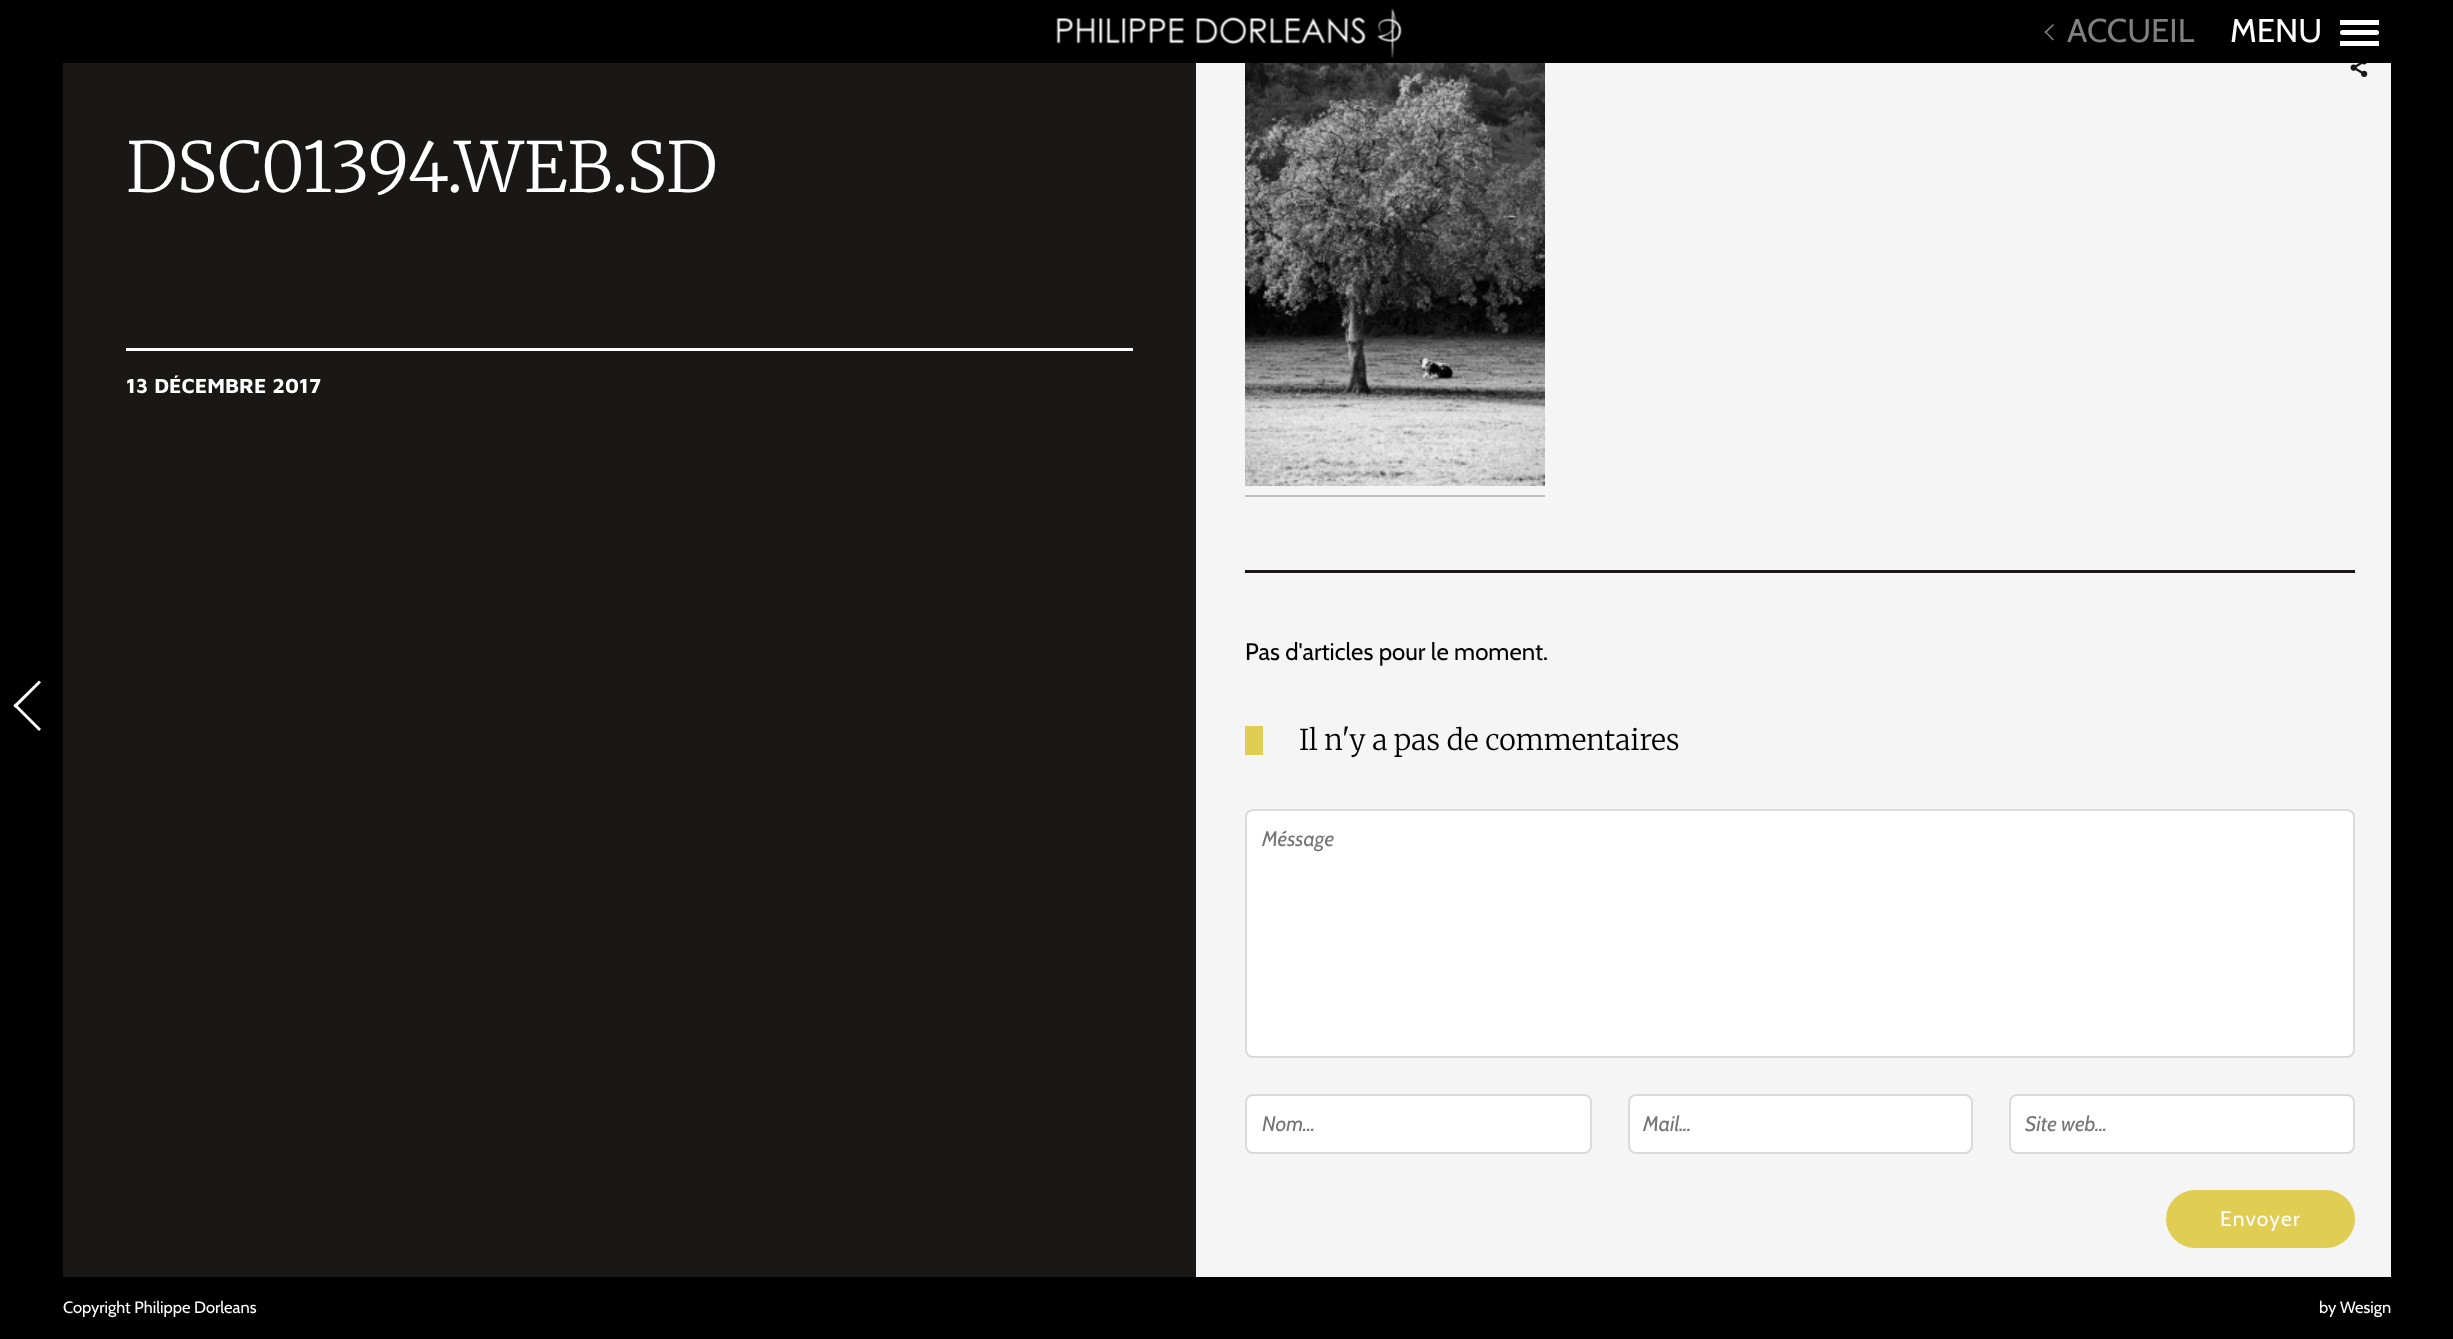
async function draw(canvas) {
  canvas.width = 2453;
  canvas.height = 1339;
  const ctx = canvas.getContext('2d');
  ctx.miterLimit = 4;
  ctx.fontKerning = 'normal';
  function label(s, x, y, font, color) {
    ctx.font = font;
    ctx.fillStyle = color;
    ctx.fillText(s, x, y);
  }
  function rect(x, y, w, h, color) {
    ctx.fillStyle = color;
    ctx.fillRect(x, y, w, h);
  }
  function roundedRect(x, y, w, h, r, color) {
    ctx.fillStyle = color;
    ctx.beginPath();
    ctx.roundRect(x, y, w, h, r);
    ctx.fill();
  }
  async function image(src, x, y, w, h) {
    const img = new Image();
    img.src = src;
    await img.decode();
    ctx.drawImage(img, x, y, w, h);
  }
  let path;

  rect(0, 0, 2453, 1339, '#f5f5f5');
  rect(0, 0, 2453, 63, '#000');
  await image('assets/img1.png', 1056, 8, 346, 50);
  ctx.fillStyle = '#808080';
  path = new Path2D('M2054 39.5L2053 40.5L2044.5 32L2045.5 31Z');
  ctx.fill(path);
  path = new Path2D('M2054 25L2045.5 33.5L2044.5 32L2053 24Z');
  ctx.fill(path);
  label('ACCUEIL', 2067, 42, '33px Cabin', '#808080');
  label('MENU', 2230, 42, '33px Cabin', '#fff');
  roundedRect(2340, 30, 39, 5, 2.5, '#fff');
  rect(2340, 20, 39, 5, '#fff');
  rect(2340, 41, 39, 5, '#fff');
  rect(0, 63, 63, 1214, '#000');
  rect(63, 63, 1133, 1214, '#1a1717');
  rect(126, 348, 1007, 3, '#fff');
  label('DSC01394.WEB.SD', 126, 192, '300 69px Merriweather', '#fff');
  label('13 DÉCEMBRE 2017', 126, 393, 'bold 21px Maven Pro', '#fff');
  await image('assets/img2.png', 2350, 63, 18, 15);
  rect(1245, 570, 1110, 3, '#1a1717');
  ctx.fillStyle = '#fff';
  path = new Path2D('M15.5 703.5L41 729L39 731L13.5 705.5Z');
  ctx.fill(path);
  path = new Path2D('M39 680.5L41 682.5L15.5 708L13.5 705.5Z');
  ctx.fill(path);
  await image('assets/img3.png', 1245, 63, 300, 423);
  rect(1245, 495, 300, 2, '#bfbfbf');
  label('Pas d\'articles pour le moment.', 1245, 660, '24px Cabin', '#000');
  rect(1245, 726, 18, 29, '#e0cd53');
  label('Il n\'y a pas de commentaires', 1299, 750, '300 28.5px Merriweather', '#000');
  ctx.fillStyle = '#fff';
  ctx.beginPath();
  ctx.roundRect(1246, 810, 1108, 247, 7);
  ctx.fill();
  ctx.strokeStyle = '#dadada';
  ctx.lineWidth = 2;
  ctx.stroke();
  label('Méssage', 1262, 846, 'italic 21px Cabin', '#757575');
  ctx.fillStyle = '#fff';
  ctx.beginPath();
  ctx.roundRect(1246, 1095, 345, 58, 7);
  ctx.fill();
  ctx.stroke();
  label('Nom...', 1262, 1131, 'italic 21px Cabin', '#757575');
  ctx.fillStyle = '#fff';
  ctx.beginPath();
  ctx.roundRect(1629, 1095, 343, 58, 7);
  ctx.fill();
  ctx.stroke();
  label('Mail...', 1643, 1131, 'italic 21px Cabin', '#757575');
  ctx.fillStyle = '#fff';
  ctx.beginPath();
  ctx.roundRect(2010, 1095, 344, 58, 7);
  ctx.fill();
  ctx.stroke();
  label('Site web...', 2025, 1131, 'italic 21px Cabin', '#757575');
  roundedRect(2166, 1190, 189, 58, 29, '#e0cd53');
  ctx.letterSpacing = '1.25px';
  label('Envoyer', 2220, 1226, '21px Cabin', '#fff');
  rect(2391, 63, 62, 1214, '#000');
  rect(0, 1277, 2453, 62, '#000');
  ctx.letterSpacing = '0px';
  label('Copyright Philippe Dorleans', 63, 1313, '16.5px Cabin', '#fff');
  label('by Wesign', 2319, 1313, '16.5px Cabin', '#fff');
}

draw(document.querySelector('canvas'));
